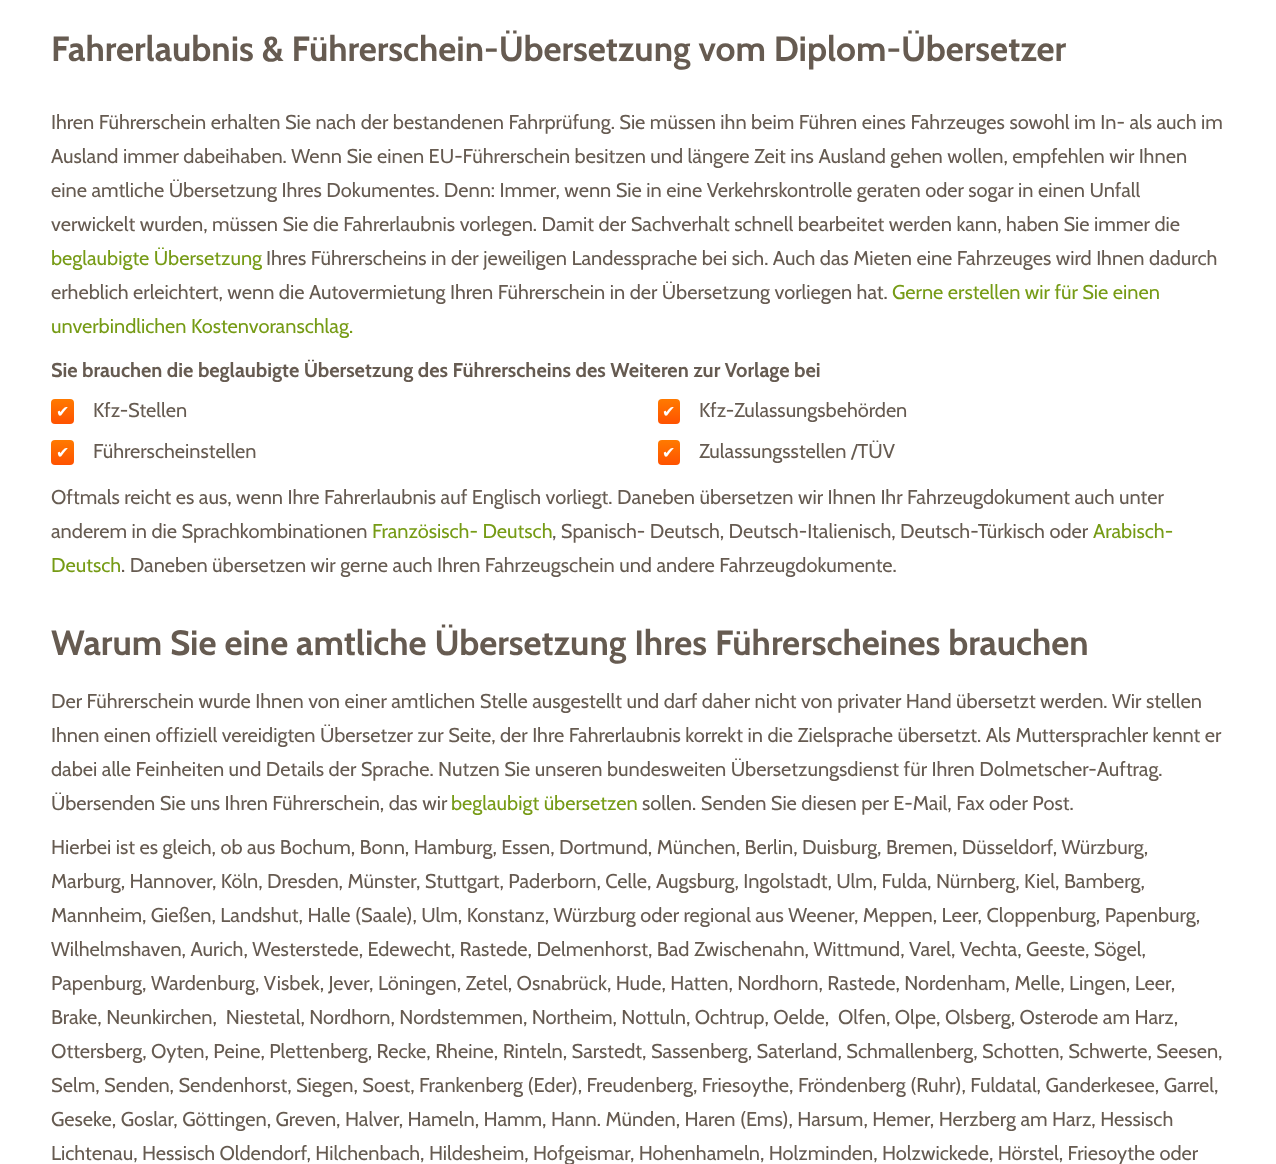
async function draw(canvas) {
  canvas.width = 1276;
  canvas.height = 1164;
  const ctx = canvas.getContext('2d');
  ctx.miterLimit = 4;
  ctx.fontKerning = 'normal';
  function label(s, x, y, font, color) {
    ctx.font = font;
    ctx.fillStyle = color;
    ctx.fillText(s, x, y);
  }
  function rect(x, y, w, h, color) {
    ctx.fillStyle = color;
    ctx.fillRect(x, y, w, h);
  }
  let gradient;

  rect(0, 0, 1276, 1164, '#fff');
  label('Fahrerlaubnis & Führerschein-Übersetzung vom Diplom-Übersetzer', 51, 61, 'bold 35px Cabin', '#665b51');
  label('Ihren Führerschein erhalten Sie nach der bestandenen Fahrprüfung. Sie müssen ihn beim Führen eines Fahrzeuges sowohl im In- als auch im', 51, 129, '20px Cabin', '#665b51');
  label('Ausland immer dabeihaben. Wenn Sie einen EU-Führerschein besitzen und längere Zeit ins Ausland gehen wollen, empfehlen wir Ihnen', 51, 163, '20px Cabin', '#665b51');
  label('eine amtliche Übersetzung Ihres Dokumentes. Denn: Immer, wenn Sie in eine Verkehrskontrolle geraten oder sogar in einen Unfall', 51, 197, '20px Cabin', '#665b51');
  label('verwickelt wurden, müssen Sie die Fahrerlaubnis vorlegen. Damit der Sachverhalt schnell bearbeitet werden kann, haben Sie immer die', 51, 231, '20px Cabin', '#665b51');
  label('beglaubigte Übersetzung', 51, 265, '20px Cabin', '#769b15');
  label('Ihres Führerscheins in der jeweiligen Landessprache bei sich. Auch das Mieten eine Fahrzeuges wird Ihnen dadurch', 266, 265, '20px Cabin', '#665b51');
  label('erheblich erleichtert, wenn die Autovermietung Ihren Führerschein in der Übersetzung vorliegen hat.', 51, 299, '20px Cabin', '#665b51');
  label('Gerne erstellen wir für Sie einen', 892, 299, '20px Cabin', '#769b15');
  label('unverbindlichen Kostenvoranschlag.', 51, 333, '20px Cabin', '#769b15');
  label('Sie brauchen die beglaubigte Übersetzung des Führerscheins des Weiteren zur Vorlage bei', 51, 377, 'bold 20px Cabin', '#665b51');
  gradient = ctx.createLinearGradient(63, 399, 63, 424);
  gradient.addColorStop(0, '#ff7a00');
  gradient.addColorStop(1, '#ff5200');
  ctx.fillStyle = gradient;
  ctx.beginPath();
  ctx.roundRect(51, 399, 23, 25, 4);
  ctx.fill();
  label('✔', 56, 417, '16px DejaVu Sans', '#fff');
  label('Kfz-Stellen', 93, 417, '20px Cabin', '#665b51');
  gradient = ctx.createLinearGradient(63, 440, 63, 465);
  gradient.addColorStop(0, '#ff7a00');
  gradient.addColorStop(1, '#ff5200');
  ctx.fillStyle = gradient;
  ctx.beginPath();
  ctx.roundRect(51, 440, 23, 25, 4);
  ctx.fill();
  label('✔', 56, 458, '16px DejaVu Sans', '#fff');
  label('Führerscheinstellen', 93, 458, '20px Cabin', '#665b51');
  gradient = ctx.createLinearGradient(669, 399, 669, 424);
  gradient.addColorStop(0, '#ff7a00');
  gradient.addColorStop(1, '#ff5200');
  ctx.fillStyle = gradient;
  ctx.beginPath();
  ctx.roundRect(658, 399, 22, 25, 4);
  ctx.fill();
  label('✔', 662, 417, '16px DejaVu Sans', '#fff');
  label('Kfz-Zulassungsbehörden', 699, 417, '20px Cabin', '#665b51');
  gradient = ctx.createLinearGradient(669, 440, 669, 465);
  gradient.addColorStop(0, '#ff7a00');
  gradient.addColorStop(1, '#ff5200');
  ctx.fillStyle = gradient;
  ctx.beginPath();
  ctx.roundRect(658, 440, 22, 25, 4);
  ctx.fill();
  label('✔', 662, 458, '16px DejaVu Sans', '#fff');
  label('Zulassungsstellen /TÜV', 699, 458, '20px Cabin', '#665b51');
  label('Oftmals reicht es aus, wenn Ihre Fahrerlaubnis auf Englisch vorliegt. Daneben übersetzen wir Ihnen Ihr Fahrzeugdokument auch unter', 51, 504, '20px Cabin', '#665b51');
  label('anderem in die Sprachkombinationen', 51, 538, '20px Cabin', '#665b51');
  label('Französisch- Deutsch', 372, 538, '20px Cabin', '#769b15');
  label(', Spanisch- Deutsch, Deutsch-Italienisch, Deutsch-Türkisch oder', 552, 538, '20px Cabin', '#665b51');
  label('Arabisch-', 1093, 538, '20px Cabin', '#769b15');
  label('Deutsch', 51, 572, '20px Cabin', '#769b15');
  label('. Daneben übersetzen wir gerne auch Ihren Fahrzeugschein und andere Fahrzeugdokumente.', 121, 572, '20px Cabin', '#665b51');
  label('Warum Sie eine amtliche Übersetzung Ihres Führerscheines brauchen', 51, 655, 'bold 35px Cabin', '#665b51');
  label('Der Führerschein wurde Ihnen von einer amtlichen Stelle ausgestellt und darf daher nicht von privater Hand übersetzt werden. Wir stellen', 51, 708, '20px Cabin', '#665b51');
  label('Ihnen einen offiziell vereidigten Übersetzer zur Seite, der Ihre Fahrerlaubnis korrekt in die Zielsprache übersetzt. Als Muttersprachler kennt er', 51, 742, '20px Cabin', '#665b51');
  label('dabei alle Feinheiten und Details der Sprache. Nutzen Sie unseren bundesweiten Übersetzungsdienst für Ihren Dolmetscher-Auftrag.', 51, 776, '20px Cabin', '#665b51');
  label('Übersenden Sie uns Ihren Führerschein, das wir', 51, 810, '20px Cabin', '#665b51');
  label('beglaubigt übersetzen', 451, 810, '20px Cabin', '#769b15');
  label('sollen. Senden Sie diesen per E-Mail, Fax oder Post.', 642, 810, '20px Cabin', '#665b51');
  label('Hierbei ist es gleich, ob aus Bochum, Bonn, Hamburg, Essen, Dortmund, München, Berlin, Duisburg, Bremen, Düsseldorf, Würzburg,', 51, 854, '20px Cabin', '#665b51');
  label('Marburg, Hannover, Köln, Dresden, Münster, Stuttgart, Paderborn, Celle, Augsburg, Ingolstadt, Ulm, Fulda, Nürnberg, Kiel, Bamberg,', 51, 888, '20px Cabin', '#665b51');
  label('Mannheim, Gießen, Landshut, Halle (Saale), Ulm, Konstanz, Würzburg oder regional aus Weener, Meppen, Leer, Cloppenburg, Papenburg,', 51, 922, '20px Cabin', '#665b51');
  label('Wilhelmshaven, Aurich, Westerstede, Edewecht, Rastede, Delmenhorst, Bad Zwischenahn, Wittmund, Varel, Vechta, Geeste, Sögel,', 51, 956, '20px Cabin', '#665b51');
  label('Papenburg, Wardenburg, Visbek, Jever, Löningen, Zetel, Osnabrück, Hude, Hatten, Nordhorn, Rastede, Nordenham, Melle, Lingen, Leer,', 51, 990, '20px Cabin', '#665b51');
  label('Brake, Neunkirchen,  Niestetal, Nordhorn, Nordstemmen, Northeim, Nottuln, Ochtrup, Oelde,  Olfen, Olpe, Olsberg, Osterode am Harz,', 51, 1024, '20px Cabin', '#665b51');
  label('Ottersberg, Oyten, Peine, Plettenberg, Recke, Rheine, Rinteln, Sarstedt, Sassenberg, Saterland, Schmallenberg, Schotten, Schwerte, Seesen,', 51, 1058, '20px Cabin', '#665b51');
  label('Selm, Senden, Sendenhorst, Siegen, Soest, Frankenberg (Eder), Freudenberg, Friesoythe, Fröndenberg (Ruhr), Fuldatal, Ganderkesee, Garrel,', 51, 1092, '20px Cabin', '#665b51');
  label('Geseke, Goslar, Göttingen, Greven, Halver, Hameln, Hamm, Hann. Münden, Haren (Ems), Harsum, Hemer, Herzberg am Harz, Hessisch', 51, 1126, '20px Cabin', '#665b51');
  label('Lichtenau, Hessisch Oldendorf, Hilchenbach, Hildesheim, Hofgeismar, Hohenhameln, Holzminden, Holzwickede, Hörstel, Friesoythe oder', 51, 1160, '20px Cabin', '#665b51');
}

draw(document.querySelector('canvas'));
